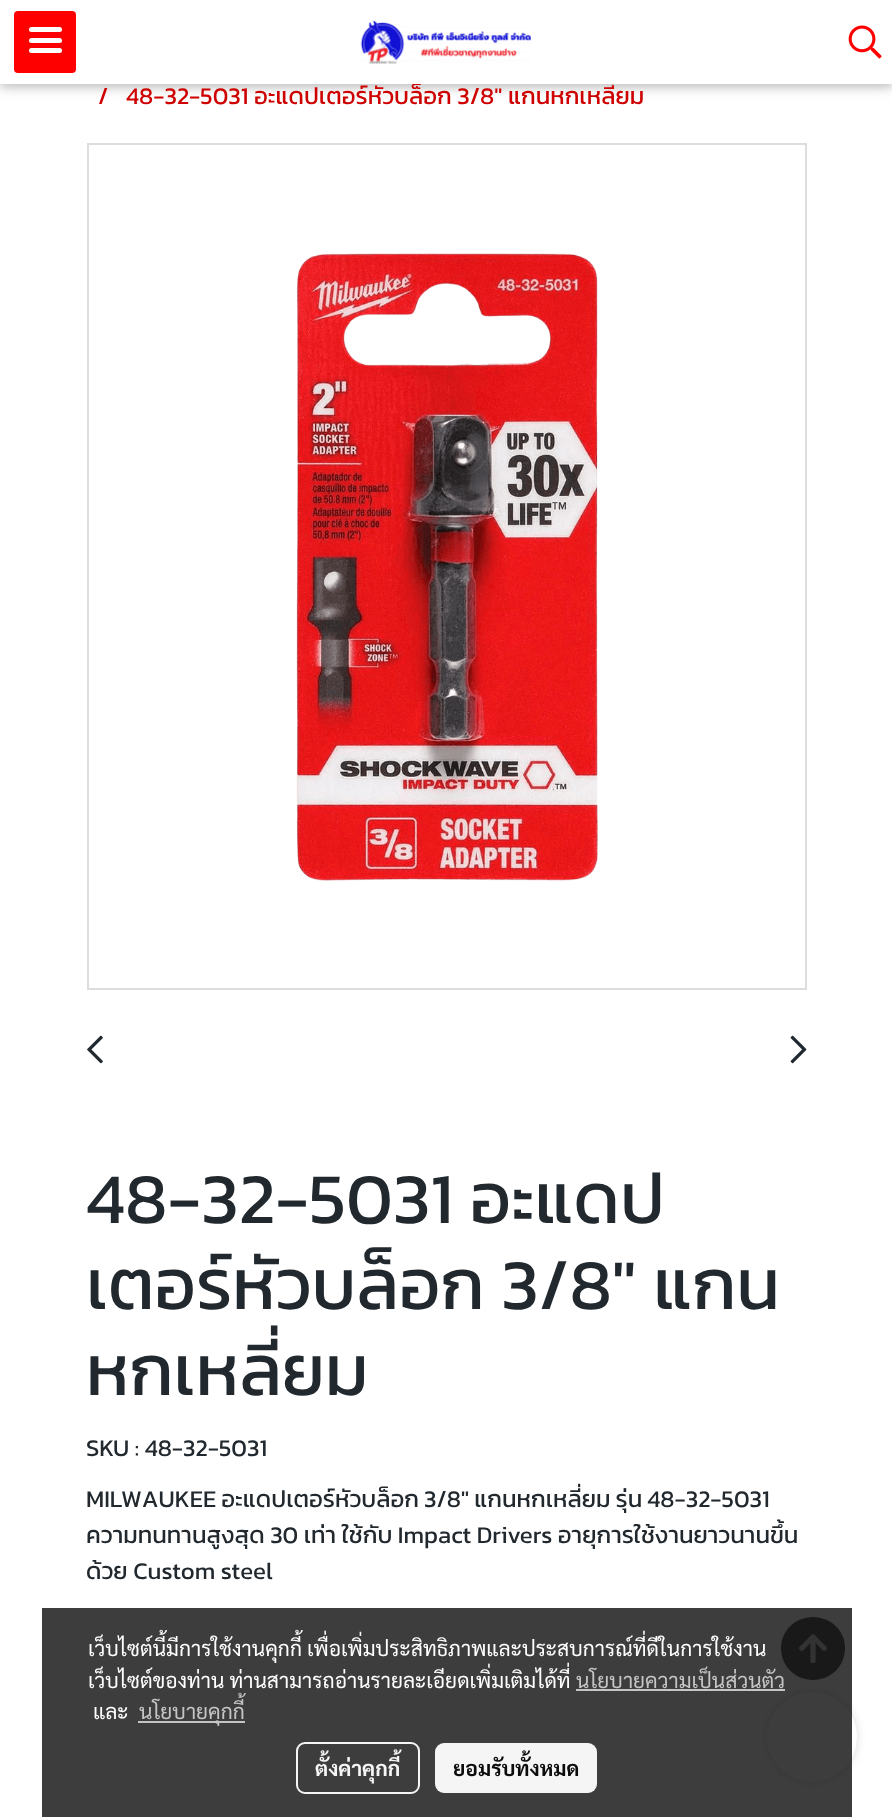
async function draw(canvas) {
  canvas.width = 892;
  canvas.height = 1817;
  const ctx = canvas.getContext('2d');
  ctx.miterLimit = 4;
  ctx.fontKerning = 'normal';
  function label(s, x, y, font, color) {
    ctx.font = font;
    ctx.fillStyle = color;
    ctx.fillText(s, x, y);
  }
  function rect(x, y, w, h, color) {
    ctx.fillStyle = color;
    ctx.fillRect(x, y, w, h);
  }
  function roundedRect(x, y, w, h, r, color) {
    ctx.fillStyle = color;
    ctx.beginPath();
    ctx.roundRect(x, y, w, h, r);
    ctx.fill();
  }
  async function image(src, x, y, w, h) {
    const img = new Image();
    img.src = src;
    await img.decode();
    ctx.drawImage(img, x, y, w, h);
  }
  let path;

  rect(0, 0, 892, 1817, '#fff');
  ctx.fillStyle = '#0000001f';
  ctx.filter = 'blur(7.5px)';
  ctx.beginPath();
  ctx.rect(0, 3, 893, 84);
  ctx.fill();
  ctx.filter = 'none';
  ctx.fillStyle = '#00000029';
  ctx.filter = 'blur(4px)';
  ctx.beginPath();
  ctx.rect(0, 3, 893, 84);
  ctx.fill();
  ctx.filter = 'none';
  label('48-32-5031 อะแดปเตอร์หัวบล็อก 3/8" แกนหกเหลี่ยม', 126, 104, '24px Kanit', '#ce0000');
  rect(0, 0, 892, 84, '#fff');
  ctx.fillStyle = '#f00';
  ctx.beginPath();
  ctx.roundRect(13, 10, 64, 64, 5);
  ctx.fill();
  ctx.strokeStyle = '#fff';
  ctx.lineWidth = 2;
  ctx.stroke();
  roundedRect(29, 38, 33, 5, 2.5, '#fff');
  roundedRect(29, 27, 33, 5, 2.5, '#fff');
  roundedRect(29, 48, 33, 5, 2.5, '#fff');
  await image('assets/img1.png', 360, 20, 171, 44);
  await image('assets/img2.png', 848, 25, 34, 34);
  label('/', 98, 104, '24px Kanit', '#ce0000');
  ctx.strokeStyle = '#ddd';
  ctx.strokeRect(88, 144, 718, 845);
  await image('assets/img3.png', 296, 253, 302, 628);
  await image('assets/img4.png', 87, 1035, 16, 29);
  await image('assets/img5.png', 790, 1035, 17, 29);
  label('48-32-5031 อะแดป', 86, 1223, '72px Kanit', '#21282e');
  label('เตอร์หัวบล็อก 3/8" แกน', 86, 1309, '72px Kanit', '#21282e');
  label('หกเหลี่ยม', 86, 1395, '72px Kanit', '#21282e');
  label('SKU : 48-32-5031', 86, 1456, '24px Kanit', '#21282e');
  ctx.wordSpacing = '-0.5px';
  label('MILWAUKEE อะแดปเตอร์หัวบล็อก 3/8" แกนหกเหลี่ยม รุ่น 48-32-5031', 86, 1507, '24px Kanit', '#21282e');
  ctx.wordSpacing = '0px';
  label('ความทนทานสูงสุด 30 เท่า ใช้กับ Impact Drivers อายุการใช้งานยาวนานขึ้น', 86, 1543, '24px Kanit', '#21282e');
  label('ด้วย Custom steel', 86, 1579, '24px Kanit', '#21282e');
  ctx.fillStyle = '#00000024';
  ctx.filter = 'blur(5px)';
  ctx.beginPath();
  ctx.roundRect(767, 1692, 90, 90, 45);
  ctx.fill();
  ctx.filter = 'none';
  ctx.fillStyle = '#6b6a6a';
  path = new Path2D('M813 1617C795 1617 781 1631 781 1648C781 1666 795 1680 813 1680C831 1680 845 1666 845 1648C845 1631 831 1617 813 1617Z');
  ctx.fill(path);
  await image('assets/img6.png', 799, 1634, 28, 29);
  ctx.fillStyle = '#fff';
  ctx.beginPath();
  ctx.arc(812, 1737, 45, 0, 2 * Math.PI);
  ctx.fill();
  rect(42, 1608, 810, 209, '#000000c2');
  label('เว็บไซต์นี้มีการใช้งานคุกกี้ เพื่อเพิ่มประสิทธิภาพและประสบการณ์ที่ดีในการใช้งาน', 88, 1656, '21px Sarabun', '#fff');
  label('เว็บไซต์ของท่าน ท่านสามารถอ่านรายละเอียดเพิ่มเติมได้ที่', 88, 1688, '21px Sarabun', '#fff');
  label('นโยบายความเป็นส่วนตัว', 576, 1688, '21px Sarabun', '#c5c5c5');
  rect(576, 1689, 209, 2, '#c5c5c5');
  label('และ', 93, 1719, '21px Sarabun', '#fff');
  rect(138, 1721, 107, 2, '#c5c5c5');
  label('นโยบายคุกกี้', 139, 1719, '21px Sarabun', '#c5c5c5');
  ctx.beginPath();
  ctx.roundRect(297, 1743, 122, 50, 8);
  ctx.strokeStyle = '#fffffff2';
  ctx.stroke();
  label('ตั้งค่าคุกกี้', 315, 1776, 'bold 21px Sarabun', '#f5f5f5');
  roundedRect(435, 1743, 162, 50, 9, '#fffffff2');
  label('ยอมรับทั้งหมด', 453, 1776, 'bold 21px Sarabun', '#0c0c0c');
}

draw(document.querySelector('canvas'));
